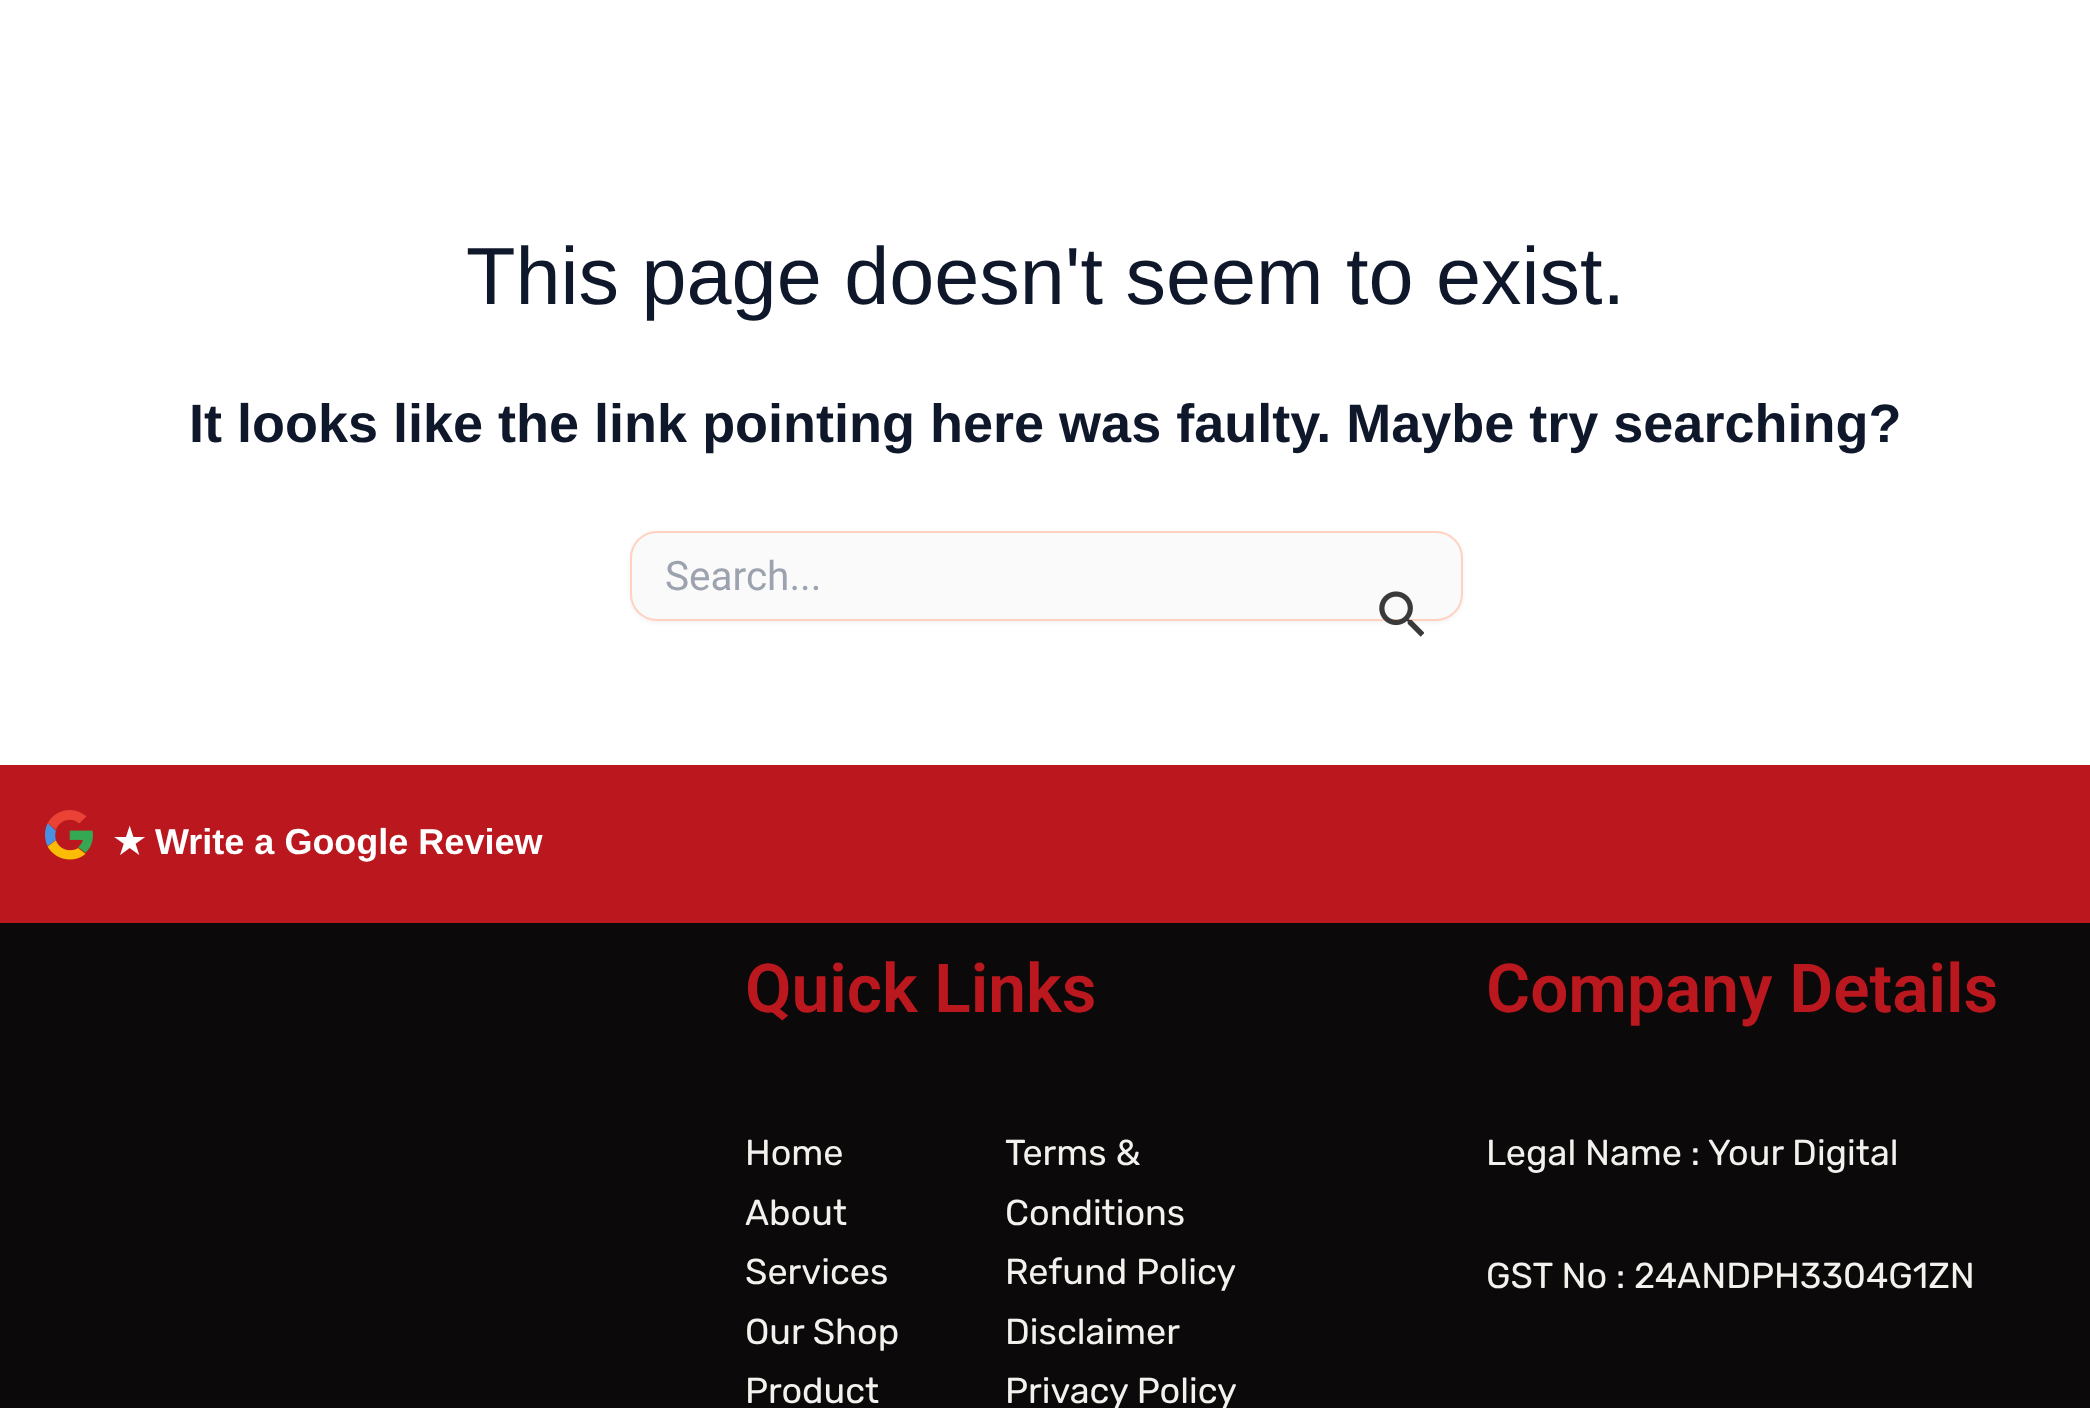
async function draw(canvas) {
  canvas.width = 2090;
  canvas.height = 1408;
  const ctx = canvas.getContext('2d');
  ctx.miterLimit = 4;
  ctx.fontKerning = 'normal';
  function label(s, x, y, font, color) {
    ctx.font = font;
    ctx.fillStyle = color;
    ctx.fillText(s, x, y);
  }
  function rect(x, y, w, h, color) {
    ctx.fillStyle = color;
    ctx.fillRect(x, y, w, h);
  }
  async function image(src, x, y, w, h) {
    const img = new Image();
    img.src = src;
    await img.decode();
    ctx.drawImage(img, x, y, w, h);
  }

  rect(0, 0, 2090, 1408, '#fff');
  label('This page doesn\'t seem to exist.', 466, 304, '81px Liberation Sans', '#0f172a');
  label('It looks like the link pointing here was faulty. Maybe try searching?', 189, 442, 'bold 54px Liberation Sans', '#0f172a');
  ctx.fillStyle = '#0000000d';
  ctx.filter = 'blur(2px)';
  ctx.beginPath();
  ctx.roundRect(630, 533, 833, 90, 27);
  ctx.fill();
  ctx.filter = 'none';
  ctx.fillStyle = '#fafafa';
  ctx.beginPath();
  ctx.roundRect(631, 532, 831, 88, 26);
  ctx.fill();
  ctx.strokeStyle = '#ffd1bf';
  ctx.lineWidth = 2;
  ctx.stroke();
  label('Search...', 665, 590, '40.5px Roboto', '#9ca3af');
  await image('assets/img1.png', 1379, 591, 45, 46);
  rect(0, 765, 2090, 158, '#ba181e');
  await image('assets/img2.png', 45, 810, 48, 50);
  label('★', 113, 854, 'bold 36px DejaVu Sans', '#fff');
  label('Write a Google Review', 155, 854, 'bold 36px Liberation Sans', '#fff');
  rect(0, 923, 2090, 485, '#0b0909');
  label('Quick Links', 745, 1012, '600 67.5px Roboto', '#ba181e');
  label('Home', 745, 1165, '36px Rubik', '#f2f1ed');
  label('About', 745, 1225, '36px Rubik', '#f2f1ed');
  label('Services', 745, 1284, '36px Rubik', '#f2f1ed');
  label('Our Shop', 745, 1344, '36px Rubik', '#f2f1ed');
  label('Product', 745, 1403, '36px Rubik', '#f2f1ed');
  label('Terms &', 1005, 1165, '36px Rubik', '#f2f1ed');
  label('Conditions', 1005, 1225, '36px Rubik', '#f2f1ed');
  label('Refund Policy', 1005, 1284, '36px Rubik', '#f2f1ed');
  label('Disclaimer', 1005, 1344, '36px Rubik', '#f2f1ed');
  label('Privacy Policy', 1005, 1403, '36px Rubik', '#f2f1ed');
  label('Company Details', 1486, 1012, '600 67.5px Roboto', '#ba181e');
  label('Legal Name : Your Digital', 1486, 1165, '36px Rubik', '#f2f1ed');
  label('GST No : 24ANDPH3304G1ZN', 1486, 1288, '36px Rubik', '#f2f1ed');
}

draw(document.querySelector('canvas'));
